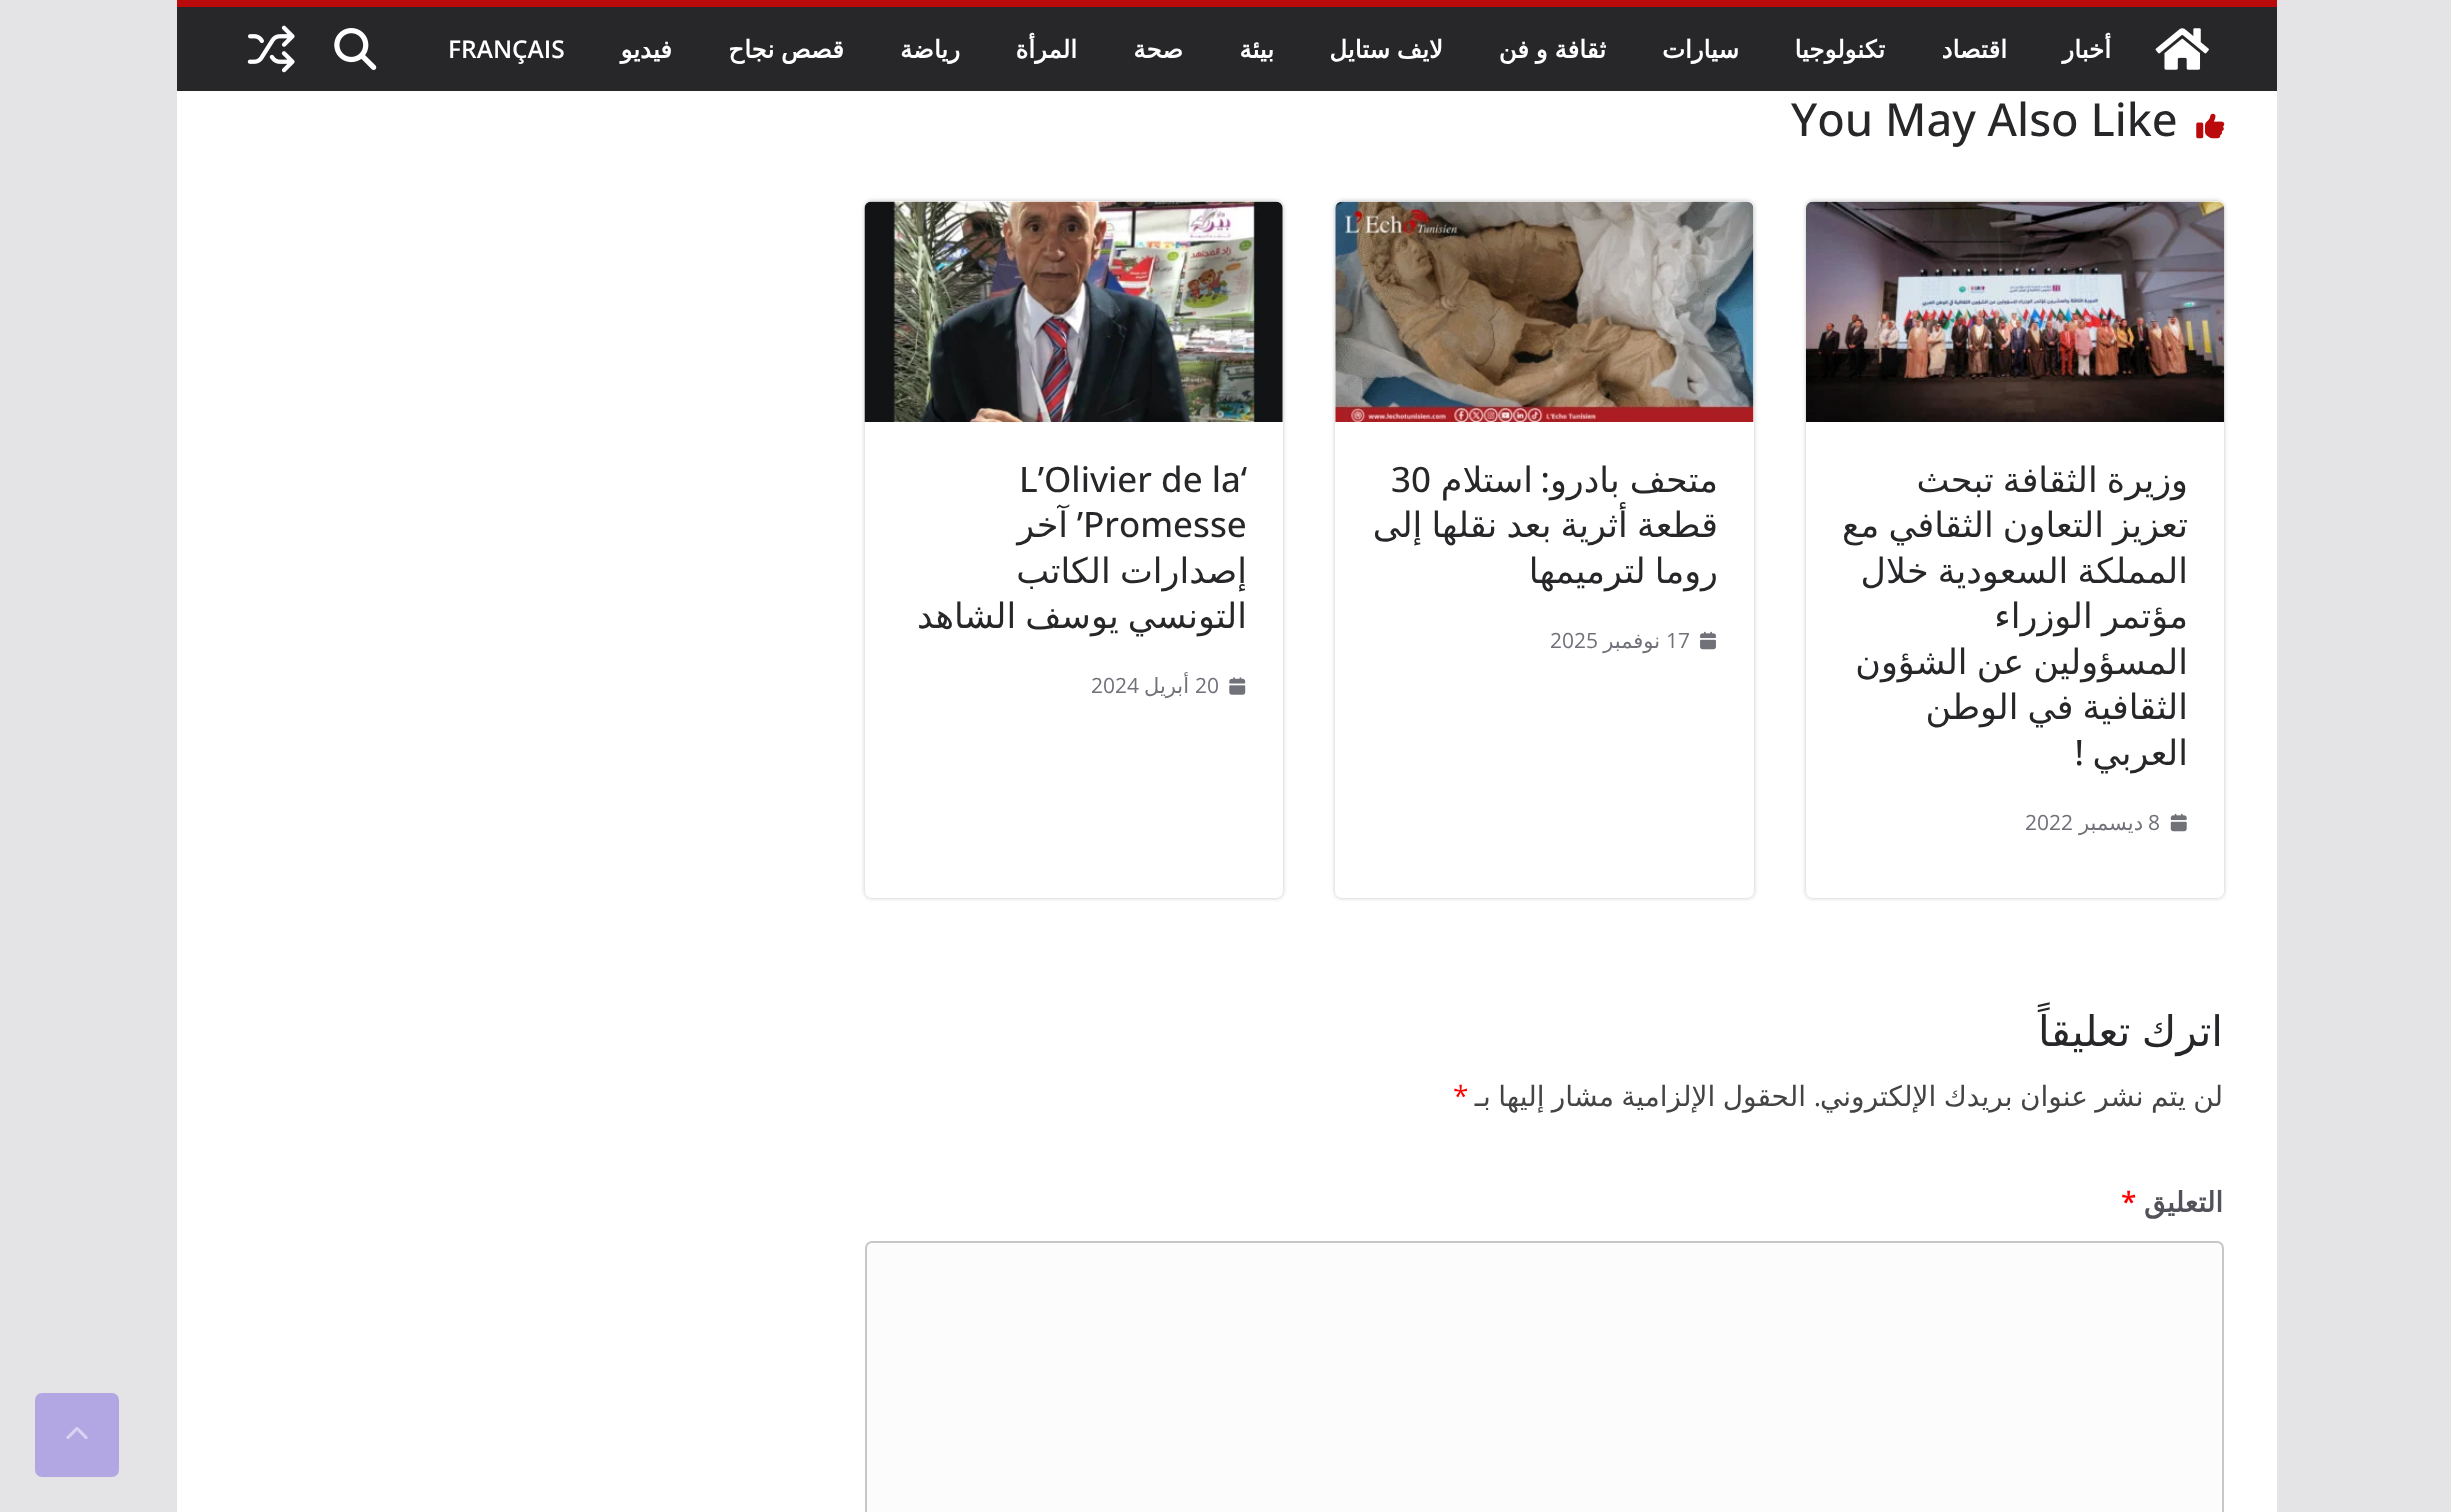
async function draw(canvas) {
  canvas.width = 2451;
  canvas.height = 1512;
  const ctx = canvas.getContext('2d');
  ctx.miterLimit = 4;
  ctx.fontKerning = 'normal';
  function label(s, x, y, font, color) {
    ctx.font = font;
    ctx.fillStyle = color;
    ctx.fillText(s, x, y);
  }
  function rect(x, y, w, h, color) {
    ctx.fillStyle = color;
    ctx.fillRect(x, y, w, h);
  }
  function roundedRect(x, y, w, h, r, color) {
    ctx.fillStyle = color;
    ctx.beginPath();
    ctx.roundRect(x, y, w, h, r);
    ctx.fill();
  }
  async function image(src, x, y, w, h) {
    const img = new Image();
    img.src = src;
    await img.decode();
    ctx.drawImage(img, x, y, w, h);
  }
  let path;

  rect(0, 0, 2451, 1512, '#e4e4e7');
  rect(177, 7, 2100, 84, '#27272a');
  rect(177, 0, 2100, 7, '#ba0a0c');
  await image('assets/img1.png', 2155, 28, 54, 42);
  ctx.direction = 'rtl';
  label('أخبار', 2111, 58, 'bold 24.5px DejaVu Sans', '#fff');
  label('اقتصاد', 2007, 58, 'bold 24.5px DejaVu Sans', '#fff');
  label('تكنولوجيا', 1885, 58, 'bold 24.5px DejaVu Sans', '#fff');
  label('سيارات', 1739, 58, 'bold 24.5px DejaVu Sans', '#fff');
  ctx.wordSpacing = '-1px';
  label('ثقافة و فن', 1606, 58, 'bold 24.5px DejaVu Sans', '#fff');
  label('لايف ستايل', 1443, 58, 'bold 24.5px DejaVu Sans', '#fff');
  ctx.wordSpacing = '0px';
  label('بيئة', 1274, 58, 'bold 24.5px DejaVu Sans', '#fff');
  label('صحة', 1183, 58, 'bold 24.5px DejaVu Sans', '#fff');
  label('المرأة', 1077, 58, 'bold 24.5px DejaVu Sans', '#fff');
  label('رياضة', 960, 58, 'bold 24.5px DejaVu Sans', '#fff');
  ctx.wordSpacing = '-1px';
  label('قصص نجاح', 844, 58, 'bold 24.5px DejaVu Sans', '#fff');
  ctx.wordSpacing = '0px';
  label('فيديو', 672, 58, 'bold 24.5px DejaVu Sans', '#fff');
  ctx.direction = 'ltr';
  label('FRANÇAIS', 448, 58, '600 24.5px Open Sans', '#fff');
  await image('assets/img2.png', 334, 28, 43, 42);
  await image('assets/img3.png', 247, 25, 48, 48);
  rect(177, 91, 2100, 1421, '#fff');
  await image('assets/img4.png', 2196, 113, 29, 26);
  label('You May Also Like', 1791, 136, '500 45.5px Open Sans', '#27272a');
  ctx.save();
  path = new Path2D('M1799 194H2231V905H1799ZM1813 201H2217C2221 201 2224 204 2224 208V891C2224 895 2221 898 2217 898H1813C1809 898 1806 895 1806 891V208C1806 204 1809 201 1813 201Z');
  ctx.clip(path, 'evenodd');
  ctx.fillStyle = '#0000003d';
  ctx.filter = 'blur(2px)';
  ctx.beginPath();
  ctx.roundRect(1806, 201, 418, 697, 7);
  ctx.fill();
  ctx.filter = 'none';
  ctx.restore();
  await image('assets/img5.png', 1806, 201, 419, 221);
  ctx.wordSpacing = '-2px';
  ctx.direction = 'rtl';
  label('وزيرة الثقافة تبحث', 2188, 492, '35px DejaVu Sans', '#27272a');
  label('تعزيز التعاون الثقافي مع', 2188, 537, '35px DejaVu Sans', '#27272a');
  label('المملكة السعودية خلال', 2188, 583, '35px DejaVu Sans', '#27272a');
  label('مؤتمر الوزراء', 2188, 628, '35px DejaVu Sans', '#27272a');
  label('المسؤولين عن الشؤون', 2188, 674, '35px DejaVu Sans', '#27272a');
  label('الثقافية في الوطن', 2188, 719, '35px DejaVu Sans', '#27272a');
  ctx.wordSpacing = '0px';
  label('العربي', 2188, 765, '35px DejaVu Sans', '#27272a');
  label('!', 2084, 765, '500 35px Open Sans', '#27272a');
  await image('assets/img6.png', 2170, 813, 17, 19);
  ctx.direction = 'ltr';
  label('8', 2148, 830, '21px Open Sans', '#71717a');
  ctx.direction = 'rtl';
  label('ديسمبر', 2143, 830, '21px DejaVu Sans', '#71717a');
  ctx.direction = 'ltr';
  label('2022', 2025, 830, '21px Open Sans', '#71717a');
  ctx.save();
  path = new Path2D('M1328 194H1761V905H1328ZM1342 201H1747C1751 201 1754 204 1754 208V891C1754 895 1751 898 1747 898H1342C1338 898 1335 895 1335 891V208C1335 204 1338 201 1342 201Z');
  ctx.clip(path, 'evenodd');
  ctx.fillStyle = '#0000003d';
  ctx.filter = 'blur(2px)';
  ctx.beginPath();
  ctx.roundRect(1335, 201, 419, 697, 7);
  ctx.fill();
  ctx.filter = 'none';
  ctx.restore();
  await image('assets/img7.png', 1335, 201, 419, 221);
  ctx.wordSpacing = '-1px';
  ctx.direction = 'rtl';
  label('متحف بادرو', 1718, 492, '35px DejaVu Sans', '#27272a');
  ctx.wordSpacing = '0px';
  label(':', 1550, 492, '500 35px Open Sans', '#27272a');
  label('استلام', 1533, 492, '35px DejaVu Sans', '#27272a');
  ctx.direction = 'ltr';
  label('30', 1391, 492, '500 35px Open Sans', '#27272a');
  ctx.wordSpacing = '-2px';
  ctx.direction = 'rtl';
  label('قطعة أثرية بعد نقلها إلى', 1718, 537, '35px DejaVu Sans', '#27272a');
  label('روما لترميمها', 1718, 583, '35px DejaVu Sans', '#27272a');
  await image('assets/img8.png', 1700, 631, 16, 19);
  ctx.wordSpacing = '0px';
  ctx.direction = 'ltr';
  label('17', 1666, 648, '21px Open Sans', '#71717a');
  ctx.direction = 'rtl';
  label('نوفمبر', 1660, 648, '21px DejaVu Sans', '#71717a');
  ctx.direction = 'ltr';
  label('2025', 1550, 648, '21px Open Sans', '#71717a');
  ctx.save();
  path = new Path2D('M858 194H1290V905H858ZM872 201H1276C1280 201 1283 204 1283 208V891C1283 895 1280 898 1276 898H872C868 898 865 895 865 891V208C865 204 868 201 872 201Z');
  ctx.clip(path, 'evenodd');
  ctx.fillStyle = '#0000003d';
  ctx.filter = 'blur(2px)';
  ctx.beginPath();
  ctx.roundRect(865, 201, 418, 697, 7);
  ctx.fill();
  ctx.filter = 'none';
  ctx.restore();
  await image('assets/img9.png', 864, 201, 419, 221);
  label('L’Olivier de la‘', 1019, 492, '500 35px Open Sans', '#27272a');
  label('Promesse', 1083, 537, '500 35px Open Sans', '#27272a');
  ctx.direction = 'rtl';
  label('’', 1083, 537, '500 35px Open Sans', '#27272a');
  label('آخر', 1068, 537, '35px DejaVu Sans', '#27272a');
  ctx.wordSpacing = '-2px';
  label('إصدارات الكاتب', 1247, 583, '35px DejaVu Sans', '#27272a');
  label('التونسي يوسف الشاهد', 1247, 628, '35px DejaVu Sans', '#27272a');
  await image('assets/img10.png', 1229, 677, 17, 18);
  ctx.wordSpacing = '0px';
  ctx.direction = 'ltr';
  label('20', 1195, 693, '21px Open Sans', '#71717a');
  ctx.direction = 'rtl';
  label('أبريل', 1189, 693, '21px DejaVu Sans', '#71717a');
  ctx.direction = 'ltr';
  label('2024', 1091, 693, '21px Open Sans', '#71717a');
  ctx.wordSpacing = '-2px';
  ctx.direction = 'rtl';
  label('اترك تعليقاً', 2223, 1046, '42px DejaVu Sans', '#27272a');
  ctx.wordSpacing = '-1.5px';
  label('لن يتم نشر عنوان بريدك الإلكتروني', 2223, 1106, '28px DejaVu Sans', '#444');
  ctx.wordSpacing = '0px';
  label('.', 1821, 1106, '28px Open Sans', '#444');
  ctx.wordSpacing = '-1.5px';
  label('الحقول الإلزامية مشار إليها بـ', 1806, 1106, '28px DejaVu Sans', '#444');
  ctx.wordSpacing = '0px';
  ctx.direction = 'ltr';
  label('*', 1453, 1106, '28px Open Sans', '#f00');
  ctx.direction = 'rtl';
  label('التعليق', 2223, 1212, 'bold 28px DejaVu Sans', '#52525b');
  ctx.direction = 'ltr';
  label('*', 2121, 1212, '600 28px Open Sans', '#f00');
  ctx.fillStyle = '#fcfcfc';
  ctx.beginPath();
  ctx.roundRect(866, 1242, 1357, 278, 6);
  ctx.fill();
  ctx.strokeStyle = '#c7c7c7';
  ctx.lineWidth = 2;
  ctx.stroke();
  roundedRect(35, 1393, 84, 84, 7, '#b3a7e3');
  await image('assets/img11.png', 66, 1427, 22, 12);
}

draw(document.querySelector('canvas'));
